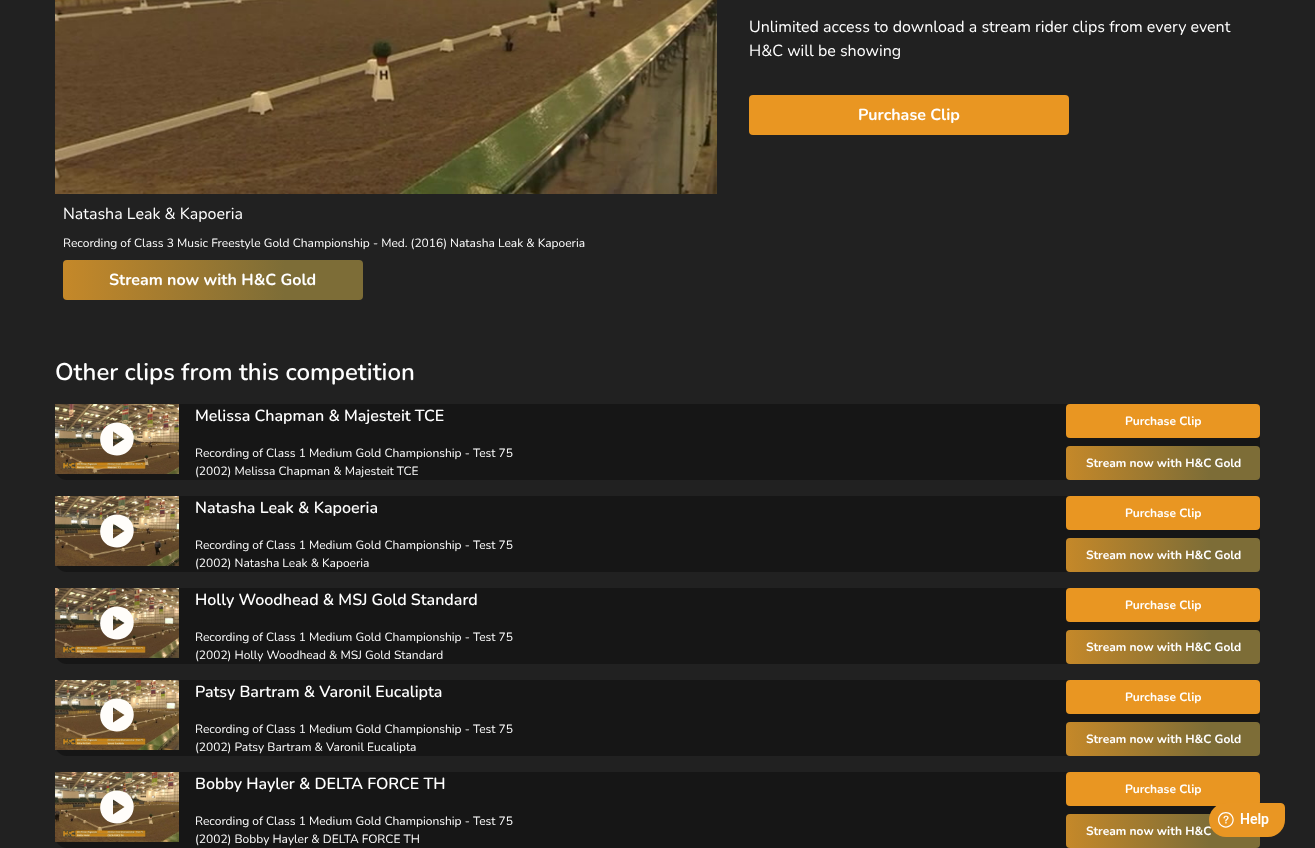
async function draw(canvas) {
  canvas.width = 1315;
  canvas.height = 848;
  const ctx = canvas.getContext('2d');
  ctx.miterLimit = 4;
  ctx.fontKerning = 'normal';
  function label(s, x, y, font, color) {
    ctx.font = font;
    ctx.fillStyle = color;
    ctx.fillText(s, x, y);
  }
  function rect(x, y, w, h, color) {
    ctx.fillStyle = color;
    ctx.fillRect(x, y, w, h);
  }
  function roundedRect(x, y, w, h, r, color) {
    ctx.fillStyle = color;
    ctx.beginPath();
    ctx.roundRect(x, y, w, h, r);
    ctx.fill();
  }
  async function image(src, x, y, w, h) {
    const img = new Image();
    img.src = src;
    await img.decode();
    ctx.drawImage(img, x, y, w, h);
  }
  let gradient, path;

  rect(0, 0, 1315, 848, '#212121');
  label('Unlimited access to download a stream rider clips from every event', 749, 32, '16px Nunito', '#fff');
  label('H&C will be showing', 749, 56, '16px Nunito', '#fff');
  roundedRect(749, 95, 320, 40, 4, '#e99622');
  label('Purchase Clip', 858, 120, 'bold 16px Nunito', '#fff');
  await image('assets/img1.png', 55, 0, 662, 194);
  label('Natasha Leak & Kapoeria', 63, 219, '16px Nunito', '#fff');
  label('Recording of Class 3 Music Freestyle Gold Championship - Med. (2016) Natasha Leak & Kapoeria', 63, 247, '12px Nunito', '#fff');
  gradient = ctx.createLinearGradient(-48, 280, 363, 280);
  gradient.addColorStop(0, '#e99622');
  gradient.addColorStop(0.81, '#7d6d37');
  ctx.fillStyle = gradient;
  ctx.beginPath();
  ctx.roundRect(63, 260, 300, 40, 4);
  ctx.fill();
  label('Stream now with H&C Gold', 109, 285, 'bold 16px Nunito', '#fff');
  label('Other clips from this competition', 55, 380, '600 24px Nunito', '#fff');
  roundedRect(55, 404, 1205, 76, 12, '#161616');
  await image('assets/img2.png', 55, 404, 124, 70);
  ctx.fillStyle = '#fffdfa';
  path = new Path2D('M113 446.5L124.5 439L113 431.5ZM117 455.5C113.5 455.5 110.5 454.5 107.5 453C94 443.5 100.5 422.5 117 422.5C120.5 422.5 123.5 423.5 126.5 425C140 434.5 133.5 455.5 117 455.5Z');
  ctx.fill(path);
  label('Melissa Chapman & Majesteit TCE', 195, 421, '600 16px Nunito', '#fff');
  label('Recording of Class 1 Medium Gold Championship - Test 75', 195, 457, '12px Nunito', '#fff');
  label('(2002) Melissa Chapman & Majesteit TCE', 195, 475, '12px Nunito', '#fff');
  roundedRect(1066, 404, 194, 34, 4, '#e99622');
  label('Purchase Clip', 1125, 425, 'bold 12px Nunito', '#fff');
  gradient = ctx.createLinearGradient(994, 463, 1260, 463);
  gradient.addColorStop(0, '#e99622');
  gradient.addColorStop(0.81, '#7d6d37');
  ctx.fillStyle = gradient;
  ctx.beginPath();
  ctx.roundRect(1066, 446, 194, 34, 4);
  ctx.fill();
  label('Stream now with H&C Gold', 1086, 467, 'bold 12px Nunito', '#fff');
  roundedRect(55, 496, 1205, 76, 12, '#161616');
  await image('assets/img3.png', 55, 496, 124, 70);
  ctx.fillStyle = '#fffdfa';
  path = new Path2D('M113 538.5L124.5 531L113 523.5ZM117 547.5C113.5 547.5 110.5 546.5 107.5 545C94 535.5 100.5 514.5 117 514.5C120.5 514.5 123.5 515.5 126.5 517C140 526.5 133.5 547.5 117 547.5Z');
  ctx.fill(path);
  label('Natasha Leak & Kapoeria', 195, 513, '600 16px Nunito', '#fff');
  label('Recording of Class 1 Medium Gold Championship - Test 75', 195, 549, '12px Nunito', '#fff');
  label('(2002) Natasha Leak & Kapoeria', 195, 567, '12px Nunito', '#fff');
  roundedRect(1066, 496, 194, 34, 4, '#e99622');
  label('Purchase Clip', 1125, 517, 'bold 12px Nunito', '#fff');
  gradient = ctx.createLinearGradient(994, 555, 1260, 555);
  gradient.addColorStop(0, '#e99622');
  gradient.addColorStop(0.81, '#7d6d37');
  ctx.fillStyle = gradient;
  ctx.beginPath();
  ctx.roundRect(1066, 538, 194, 34, 4);
  ctx.fill();
  label('Stream now with H&C Gold', 1086, 559, 'bold 12px Nunito', '#fff');
  roundedRect(55, 588, 1205, 76, 12, '#161616');
  await image('assets/img4.png', 55, 588, 124, 70);
  ctx.fillStyle = '#fffdfa';
  path = new Path2D('M113 630.5L124.5 623L113 615.5ZM117 639.5C113.5 639.5 110.5 638.5 107.5 637C94 627.5 100.5 606.5 117 606.5C120.5 606.5 123.5 607.5 126.5 609C140 618.5 133.5 639.5 117 639.5Z');
  ctx.fill(path);
  label('Holly Woodhead & MSJ Gold Standard', 195, 605, '600 16px Nunito', '#fff');
  label('Recording of Class 1 Medium Gold Championship - Test 75', 195, 641, '12px Nunito', '#fff');
  label('(2002) Holly Woodhead & MSJ Gold Standard', 195, 659, '12px Nunito', '#fff');
  roundedRect(1066, 588, 194, 34, 4, '#e99622');
  label('Purchase Clip', 1125, 609, 'bold 12px Nunito', '#fff');
  gradient = ctx.createLinearGradient(994, 647, 1260, 647);
  gradient.addColorStop(0, '#e99622');
  gradient.addColorStop(0.81, '#7d6d37');
  ctx.fillStyle = gradient;
  ctx.beginPath();
  ctx.roundRect(1066, 630, 194, 34, 4);
  ctx.fill();
  label('Stream now with H&C Gold', 1086, 651, 'bold 12px Nunito', '#fff');
  roundedRect(55, 680, 1205, 76, 12, '#161616');
  await image('assets/img5.png', 55, 680, 124, 70);
  ctx.fillStyle = '#fffdfa';
  path = new Path2D('M113 722.5L124.5 715L113 707.5ZM117 731.5C113.5 731.5 110.5 730.5 107.5 729C94 719.5 100.5 698.5 117 698.5C120.5 698.5 123.5 699.5 126.5 701C140 710.5 133.5 731.5 117 731.5Z');
  ctx.fill(path);
  label('Patsy Bartram & Varonil Eucalipta', 195, 697, '600 16px Nunito', '#fff');
  label('Recording of Class 1 Medium Gold Championship - Test 75', 195, 733, '12px Nunito', '#fff');
  label('(2002) Patsy Bartram & Varonil Eucalipta', 195, 751, '12px Nunito', '#fff');
  roundedRect(1066, 680, 194, 34, 4, '#e99622');
  label('Purchase Clip', 1125, 701, 'bold 12px Nunito', '#fff');
  gradient = ctx.createLinearGradient(994, 739, 1260, 739);
  gradient.addColorStop(0, '#e99622');
  gradient.addColorStop(0.81, '#7d6d37');
  ctx.fillStyle = gradient;
  ctx.beginPath();
  ctx.roundRect(1066, 722, 194, 34, 4);
  ctx.fill();
  label('Stream now with H&C Gold', 1086, 743, 'bold 12px Nunito', '#fff');
  roundedRect(55, 772, 1205, 76, 12, '#161616');
  await image('assets/img6.png', 55, 772, 124, 70);
  ctx.fillStyle = '#fffdfa';
  path = new Path2D('M113 814.5L124.5 807L113 799.5ZM117 823.5C113.5 823.5 110.5 822.5 107.5 821C94 811.5 100.5 790.5 117 790.5C120.5 790.5 123.5 791.5 126.5 793C140 802.5 133.5 823.5 117 823.5Z');
  ctx.fill(path);
  label('Bobby Hayler & DELTA FORCE TH', 195, 789, '600 16px Nunito', '#fff');
  label('Recording of Class 1 Medium Gold Championship - Test 75', 195, 825, '12px Nunito', '#fff');
  label('(2002) Bobby Hayler & DELTA FORCE TH', 195, 843, '12px Nunito', '#fff');
  roundedRect(1066, 772, 194, 34, 4, '#e99622');
  label('Purchase Clip', 1125, 793, 'bold 12px Nunito', '#fff');
  gradient = ctx.createLinearGradient(994, 831, 1260, 831);
  gradient.addColorStop(0, '#e99622');
  gradient.addColorStop(0.81, '#7d6d37');
  ctx.fillStyle = gradient;
  ctx.beginPath();
  ctx.roundRect(1066, 814, 194, 34, 4);
  ctx.fill();
  label('Stream now with H&C', 1086, 835, 'bold 12px Nunito', '#fff');
  await image('assets/img7.png', 1209, 803, 76, 34);
}

draw(document.querySelector('canvas'));
